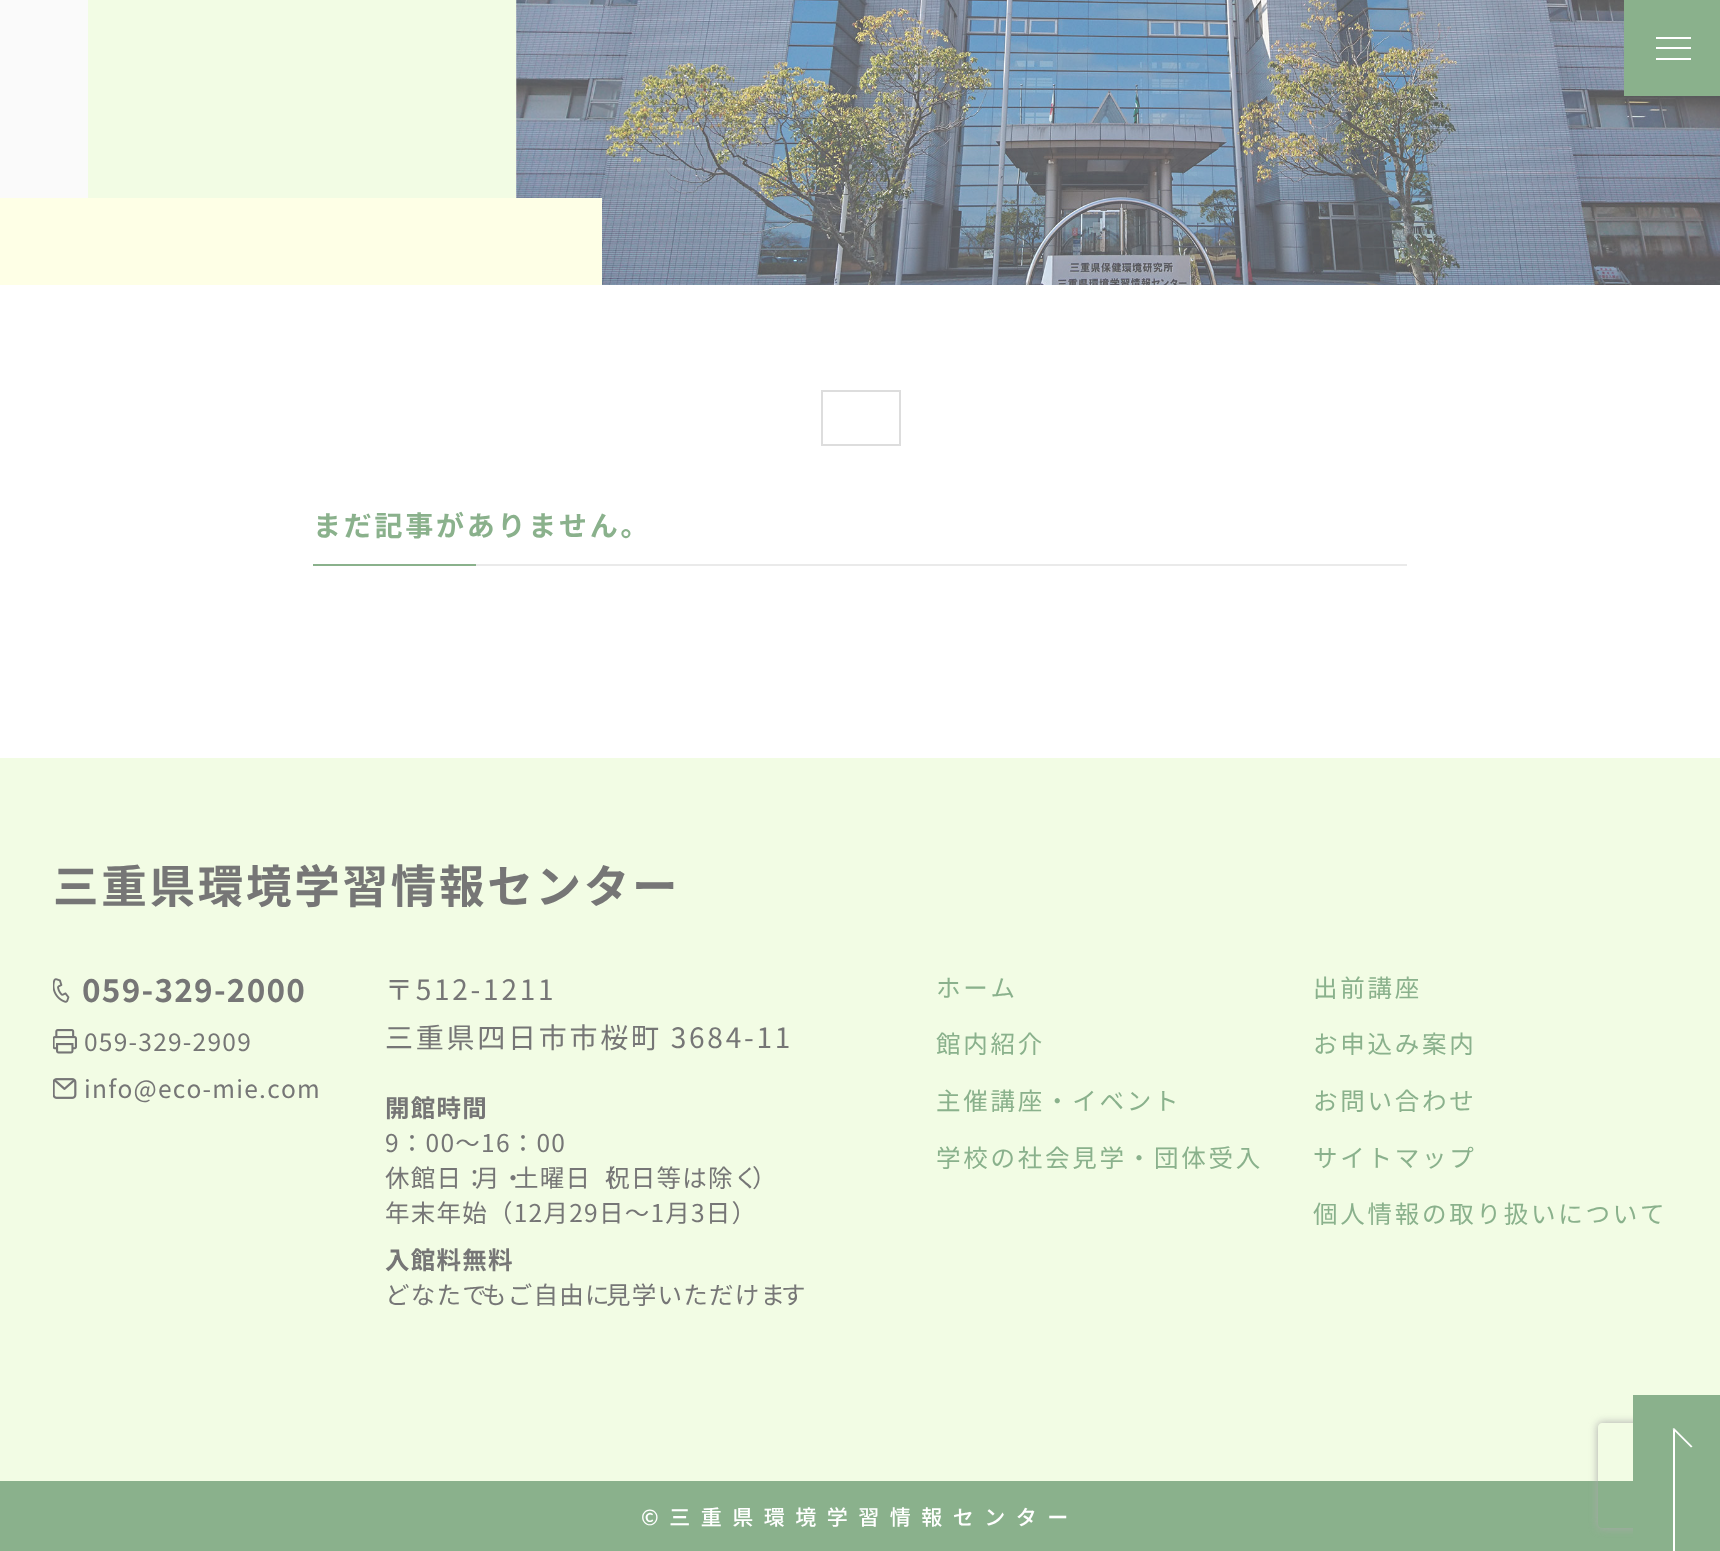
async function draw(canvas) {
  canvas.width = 1720;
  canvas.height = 1551;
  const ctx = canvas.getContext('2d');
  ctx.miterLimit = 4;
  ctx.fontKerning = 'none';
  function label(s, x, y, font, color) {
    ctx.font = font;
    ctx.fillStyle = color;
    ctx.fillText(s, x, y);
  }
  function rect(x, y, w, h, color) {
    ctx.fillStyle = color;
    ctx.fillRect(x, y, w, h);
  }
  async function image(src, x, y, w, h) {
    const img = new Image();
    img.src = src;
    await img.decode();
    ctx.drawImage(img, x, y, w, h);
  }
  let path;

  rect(0, 0, 1720, 1551, '#fafafa');
  rect(88, 0, 428, 198, '#f2fce4');
  await image('assets/img1.png', 516, 0, 1204, 285);
  rect(1624, 0, 96, 96, '#8ab18c');
  rect(1656, 47, 35, 2, '#fff');
  rect(1656, 37, 35, 2, '#fff');
  rect(1656, 58, 35, 2, '#fff');
  rect(0, 198, 602, 87, '#feffe6');
  rect(0, 285, 1720, 473, '#fff');
  ctx.strokeStyle = '#ddd';
  ctx.lineWidth = 2;
  ctx.strokeRect(822, 391, 78, 54);
  rect(476, 564, 931, 2, '#eaeaea');
  ctx.letterSpacing = '2.75px';
  label('まだ記事がありません。', 313, 536, 'bold 28px Noto Sans JP', '#8ab18c');
  rect(313, 564, 163, 2, '#8ab18c');
  rect(0, 758, 1720, 723, '#f2fce4');
  rect(0, 1481, 1633, 70, '#8ab18c');
  ctx.save();
  path = new Path2D('M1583 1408H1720V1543H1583ZM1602 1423H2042C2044 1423 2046 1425 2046 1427V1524C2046 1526 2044 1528 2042 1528H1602C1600 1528 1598 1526 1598 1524V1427C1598 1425 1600 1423 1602 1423Z');
  ctx.clip(path, 'evenodd');
  ctx.fillStyle = '#aaa';
  ctx.filter = 'blur(4.5px)';
  ctx.beginPath();
  ctx.roundRect(1598, 1423, 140, 105, 4);
  ctx.fill();
  ctx.filter = 'none';
  ctx.restore();
  rect(1633, 1395, 87, 156, '#8ab18c');
  ctx.fillStyle = '#fff';
  path = new Path2D('M1672.5 1429L1674 1428L1692.5 1446.5L1691 1447.5Z');
  ctx.fill(path);
  rect(1673, 1430, 2, 121, '#fff');
  label('三重県環境学習情報センター', 53, 903, 'bold 45.5px Noto Sans JP', '#767676');
  await image('assets/img2.png', 53, 978, 17, 25);
  ctx.letterSpacing = '1.25px';
  label('059-329-2000', 82, 1002, 'bold 31.5px Noto Sans JP', '#767676');
  await image('assets/img3.png', 53, 1029, 24, 25);
  label('059-329-2909', 84, 1051, '24.5px Noto Sans JP', '#767676');
  await image('assets/img4.png', 53, 1078, 24, 21);
  label('info@eco-mie.com', 84, 1098, '24.5px Noto Sans JP', '#767676');
  ctx.letterSpacing = '2.75px';
  label('〒512-1211', 385, 1000, '28px Noto Sans JP', '#767676');
  label('三重県四日市市桜町 3684-11', 385, 1048, '28px Noto Sans JP', '#767676');
  ctx.letterSpacing = '1.25px';
  label('開館時間', 385, 1117, 'bold 24.5px Noto Sans JP', '#767676');
  label('9：00～16：00', 385, 1152, '24.5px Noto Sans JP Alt', '#767676');
  label('休館日：', 385, 1187, '24.5px Noto Sans JP', '#767676');
  label('月・', 475, 1187, '24.5px Noto Sans JP', '#767676');
  label('土曜日（', 514, 1187, '24.5px Noto Sans JP', '#767676');
  label('祝日等は除く', 605, 1187, '24.5px Noto Sans JP', '#767676');
  label('）', 752, 1187, '24.5px Noto Sans JP', '#767676');
  label('年末年始（12月29日～1月3日）', 385, 1222, '24.5px Noto Sans JP Alt', '#767676');
  label('入館料無料', 385, 1269, 'bold 24.5px Noto Sans JP', '#767676');
  label('どなたで', 385, 1304, '24.5px Noto Sans JP', '#767676');
  label('もご自由に', 482, 1304, '24.5px Noto Sans JP', '#767676');
  label('見学いただけま', 606, 1304, '24.5px Noto Sans JP', '#767676');
  label('す', 781, 1304, '24.5px Noto Sans JP', '#767676');
  ctx.letterSpacing = '2.75px';
  label('ホーム', 936, 997, '24.5px Noto Sans JP', '#8ab18c');
  label('館内紹介', 936, 1053, '24.5px Noto Sans JP', '#8ab18c');
  label('主催講座・イベント', 936, 1110, '24.5px Noto Sans JP', '#8ab18c');
  label('学校の社会見学・団体受入', 936, 1167, '24.5px Noto Sans JP', '#8ab18c');
  label('出前講座', 1313, 997, '24.5px Noto Sans JP', '#8ab18c');
  label('お申込み案内', 1313, 1053, '24.5px Noto Sans JP', '#8ab18c');
  label('お問い合わせ', 1313, 1110, '24.5px Noto Sans JP', '#8ab18c');
  label('サイトマップ', 1313, 1167, '24.5px Noto Sans JP', '#8ab18c');
  label('個人情報の取り扱いについて', 1313, 1223, '24.5px Noto Sans JP', '#8ab18c');
  ctx.letterSpacing = '10.5px';
  label('©三重県環境学習情報センター', 641, 1525, '500 21px Noto Sans JP', '#fff');
}

draw(document.querySelector('canvas'));
